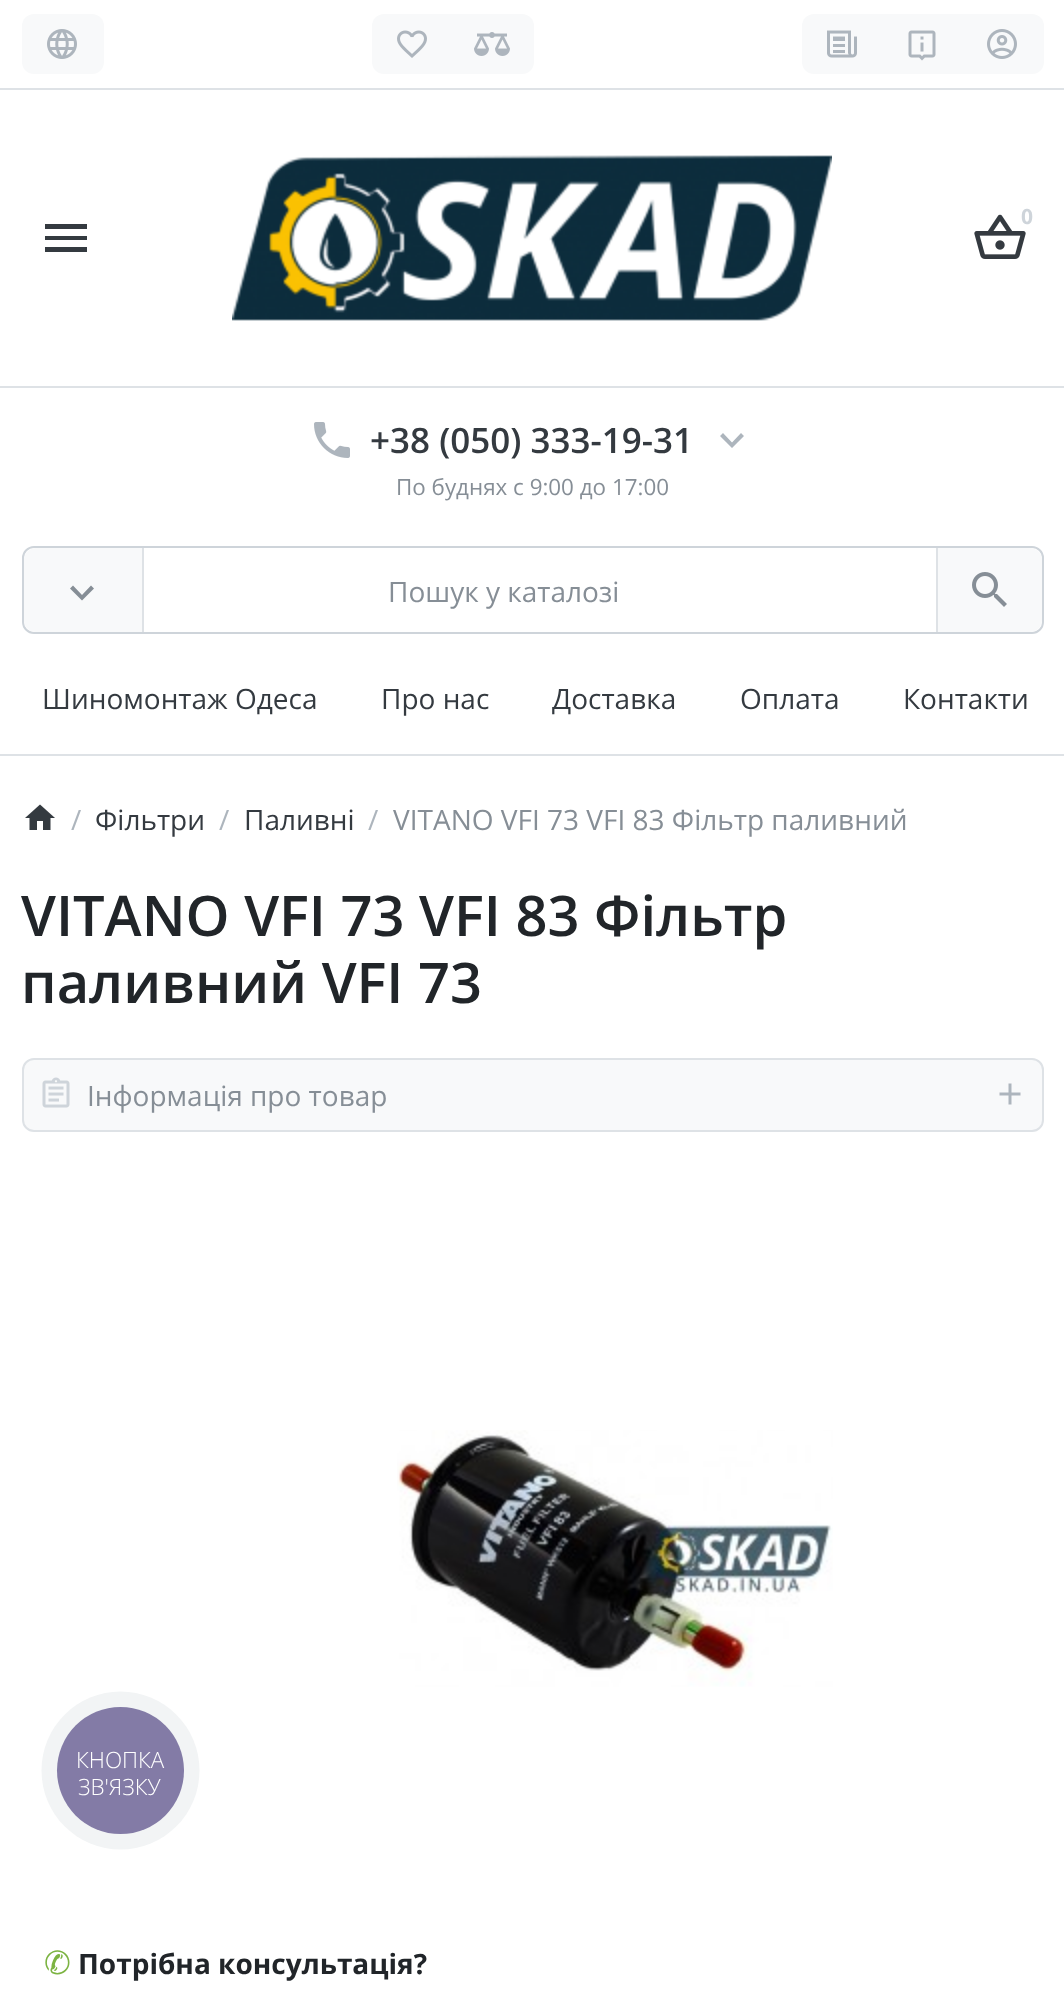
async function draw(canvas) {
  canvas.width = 1064;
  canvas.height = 2005;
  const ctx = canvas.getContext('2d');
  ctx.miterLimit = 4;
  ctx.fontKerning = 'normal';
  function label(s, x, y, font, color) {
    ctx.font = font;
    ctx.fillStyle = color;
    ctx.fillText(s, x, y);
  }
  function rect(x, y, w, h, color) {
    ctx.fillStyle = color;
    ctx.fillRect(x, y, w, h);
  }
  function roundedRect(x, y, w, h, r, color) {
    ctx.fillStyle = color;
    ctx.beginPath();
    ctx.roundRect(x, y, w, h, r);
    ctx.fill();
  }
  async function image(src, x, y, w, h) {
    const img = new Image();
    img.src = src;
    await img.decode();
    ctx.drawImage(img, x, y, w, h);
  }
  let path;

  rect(0, 0, 1064, 2005, '#fff');
  rect(0, 88, 1064, 2, '#dee2e6');
  roundedRect(22, 14, 82, 60, 12, '#f8f9fa');
  await image('assets/img1.png', 47, 29, 30, 30);
  ctx.beginPath();
  ctx.roundRect(372, 14, 82, 60, [12, 0, 0, 12]);
  ctx.fill();
  await image('assets/img2.png', 397, 30, 30, 28);
  ctx.beginPath();
  ctx.roundRect(452, 14, 82, 60, [0, 12, 12, 0]);
  ctx.fill();
  await image('assets/img3.png', 474, 32, 36, 24);
  ctx.beginPath();
  ctx.roundRect(802, 14, 82, 60, [12, 0, 0, 12]);
  ctx.fill();
  await image('assets/img4.png', 827, 30, 30, 28);
  rect(884, 14, 78, 60, '#f8f9fa');
  await image('assets/img5.png', 908, 30, 28, 31);
  ctx.beginPath();
  ctx.roundRect(962, 14, 82, 60, [0, 12, 12, 0]);
  ctx.fill();
  await image('assets/img6.png', 987, 29, 30, 30);
  await image('assets/img7.png', 232, 155, 600, 166);
  await image('assets/img8.png', 974, 214, 52, 45);
  label('0', 1021, 224, 'bold 21px Open Sans', '#ced4da');
  ctx.fillStyle = '#343a40';
  path = new Path2D('M45 252H87V247H45ZM45 240H87V236H45ZM45 224V229H87V224Z');
  ctx.fill(path);
  rect(0, 386, 1064, 2, '#dee2e6');
  await image('assets/img9.png', 314, 422, 36, 36);
  label('+38 (050) 333-19-31', 370, 453, '600 35px Open Sans', '#343a40');
  ctx.fillStyle = '#adb5bd';
  path = new Path2D('M723 433L732 442.5L741 433L744 436L732 448L720 436Z');
  ctx.fill(path);
  label('По буднях с 9:00 до 17:00', 396, 495, '22.4px Open Sans', '#868e96');
  ctx.beginPath();
  ctx.roundRect(23, 547, 1020, 86, 11);
  ctx.strokeStyle = '#ced4da';
  ctx.lineWidth = 2;
  ctx.stroke();
  ctx.fillStyle = '#f8f9fa';
  ctx.beginPath();
  ctx.roundRect(24, 548, 120, 84, [12, 0, 0, 12]);
  ctx.fill();
  rect(142, 548, 2, 84, '#dee2e6');
  ctx.fillStyle = '#868e96';
  path = new Path2D('M73 585.5L82 595L91 585.5L94 588.5L82 600.5L70 588.5Z');
  ctx.fill(path);
  label('Пошук у каталозі', 388, 602, '28px Open Sans', '#868e96');
  ctx.fillStyle = '#f8f9fa';
  ctx.beginPath();
  ctx.roundRect(936, 548, 106, 84, [0, 12, 12, 0]);
  ctx.fill();
  rect(936, 548, 2, 84, '#dee2e6');
  await image('assets/img10.png', 972, 572, 35, 35);
  label('Шиномонтаж Одеса', 42, 709, '28px Open Sans', '#343a40');
  label('Про нас', 381, 709, '28px Open Sans', '#343a40');
  label('Доставка', 552, 709, '28px Open Sans', '#343a40');
  label('Оплата', 740, 709, '28px Open Sans', '#343a40');
  label('Контакти', 903, 709, '28px Open Sans', '#343a40');
  rect(0, 754, 1064, 2, '#dee2e6');
  await image('assets/img11.png', 25, 804, 30, 26);
  label('/', 71, 830, '28px Open Sans', '#adb5bd');
  label('Фільтри', 95, 830, '28px Open Sans', '#343a40');
  label('/', 219, 830, '28px Open Sans', '#adb5bd');
  label('Паливні', 244, 830, '28px Open Sans', '#343a40');
  label('/', 368, 830, '28px Open Sans', '#adb5bd');
  label('VITANO VFI 73 VFI 83 Фільтр паливний', 393, 830, '28px Open Sans', '#868e96');
  label('VITANO VFI 73 VFI 83 Фільтр', 21, 936, '600 56px Open Sans', '#212529');
  label('паливний VFI 73', 21, 1003, '600 56px Open Sans', '#212529');
  ctx.fillStyle = '#f8f9fa';
  ctx.beginPath();
  ctx.roundRect(23, 1059, 1020, 72, 11);
  ctx.fill();
  ctx.strokeStyle = '#dee2e6';
  ctx.stroke();
  await image('assets/img12.png', 42, 1077, 28, 31);
  label('Інформація про товар', 87, 1106, '28px Open Sans', '#868e96');
  await image('assets/img13.png', 999, 1083, 22, 22);
  await image('assets/img14.png', 397, 1430, 436, 257);
  label('✆', 44, 1974, '32px DejaVu Sans', '#7cb342');
  label('Потрібна консультація?', 78, 1974, 'bold 28px Open Sans', '#212529');
  ctx.fillStyle = '#f2f4f5';
  ctx.beginPath();
  ctx.arc(120.5, 1770.5, 79, 0, 2 * Math.PI);
  ctx.fill();
  ctx.fillStyle = '#837ba6';
  ctx.beginPath();
  ctx.arc(120.5, 1770.5, 63.5, 0, 2 * Math.PI);
  ctx.fill();
  label('КНОПКА', 76, 1768, '300 22.4px Open Sans', '#fff');
  label('ЗВ\'ЯЗКУ', 78, 1795, '300 22.4px Open Sans', '#fff');
}

draw(document.querySelector('canvas'));
